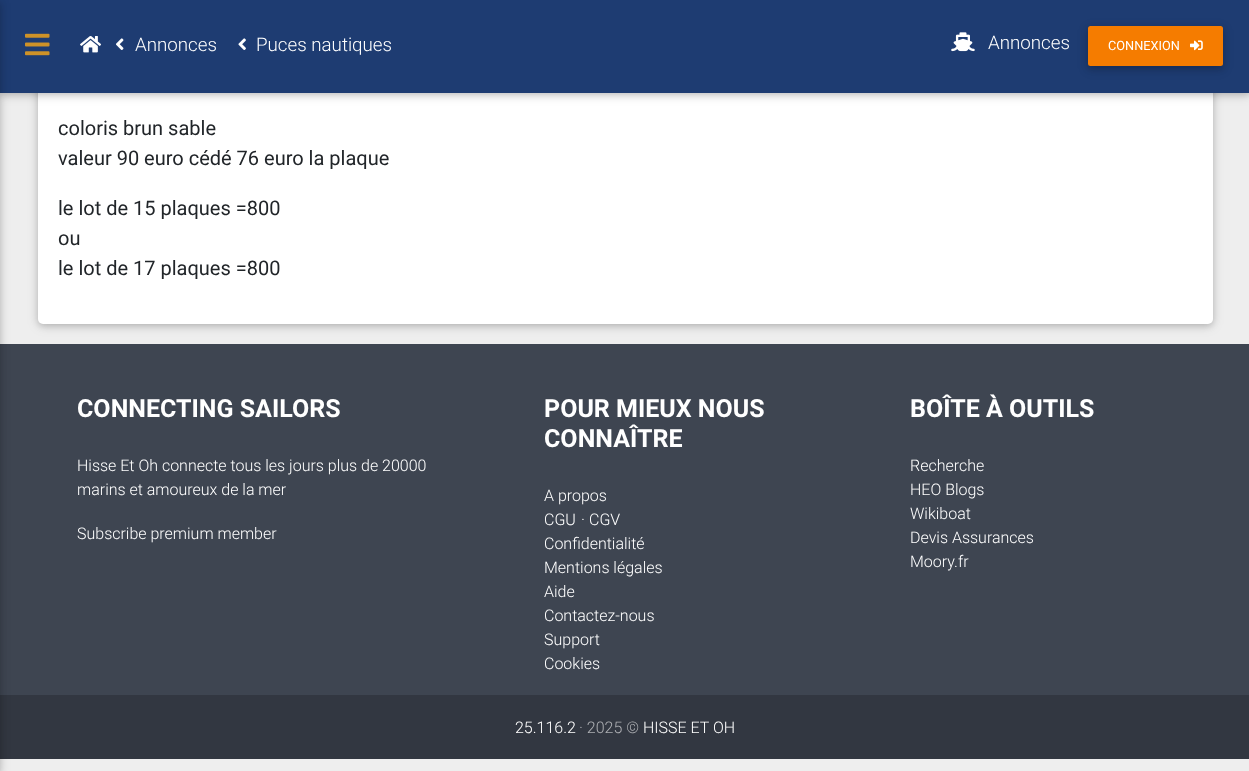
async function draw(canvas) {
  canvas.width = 1249;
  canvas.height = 771;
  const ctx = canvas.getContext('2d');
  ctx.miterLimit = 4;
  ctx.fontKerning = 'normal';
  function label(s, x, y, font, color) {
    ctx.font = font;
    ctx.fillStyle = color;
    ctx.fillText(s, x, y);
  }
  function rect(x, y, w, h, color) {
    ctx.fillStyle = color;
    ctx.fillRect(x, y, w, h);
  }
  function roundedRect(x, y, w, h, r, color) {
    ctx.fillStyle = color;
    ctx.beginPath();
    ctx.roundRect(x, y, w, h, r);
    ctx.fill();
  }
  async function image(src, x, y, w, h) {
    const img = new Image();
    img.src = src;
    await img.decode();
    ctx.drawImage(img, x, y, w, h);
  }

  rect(0, 0, 1249, 771, '#eee');
  rect(0, 344, 1249, 351, '#3e4551');
  ctx.fillStyle = '#0000001f';
  ctx.filter = 'blur(6px)';
  ctx.beginPath();
  ctx.roundRect(38, -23, 1175, 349, 5);
  ctx.fill();
  ctx.filter = 'none';
  ctx.fillStyle = '#00000029';
  ctx.filter = 'blur(3px)';
  ctx.beginPath();
  ctx.roundRect(38, -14, 1175, 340, 5);
  ctx.fill();
  ctx.filter = 'none';
  roundedRect(38, -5, 1175, 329, 5, '#fff');
  ctx.fillStyle = '#0000001f';
  ctx.filter = 'blur(6px)';
  ctx.beginPath();
  ctx.rect(0, 3, 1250, 92);
  ctx.fill();
  ctx.filter = 'none';
  ctx.fillStyle = '#00000029';
  ctx.filter = 'blur(3px)';
  ctx.beginPath();
  ctx.rect(0, 3, 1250, 92);
  ctx.fill();
  ctx.filter = 'none';
  rect(0, 0, 1249, 93, '#1e3c72');
  rect(0, 695, 1249, 64, '#323741');
  ctx.fillStyle = '#0000001f';
  ctx.filter = 'blur(6px)';
  ctx.beginPath();
  ctx.rect(-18, 3, 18, 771);
  ctx.fill();
  ctx.filter = 'none';
  ctx.fillStyle = '#00000029';
  ctx.filter = 'blur(3px)';
  ctx.beginPath();
  ctx.rect(-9, 3, 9, 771);
  ctx.fill();
  ctx.filter = 'none';
  await image('assets/img1.png', 25, 33, 25, 23);
  await image('assets/img2.png', 80, 36, 21, 17);
  await image('assets/img3.png', 116, 38, 8, 12);
  label('Annonces', 135, 51, '300 18.75px Roboto', '#fff');
  await image('assets/img4.png', 238, 38, 8, 12);
  label('Puces nautiques', 256, 51, '300 18.75px Roboto', '#fff');
  await image('assets/img5.png', 951, 32, 24, 20);
  label('Annonces', 988, 49, '300 18.75px Roboto', '#fff');
  ctx.fillStyle = '#0000001f';
  ctx.filter = 'blur(6px)';
  ctx.beginPath();
  ctx.roundRect(1088, 29, 135, 40, 2.5);
  ctx.fill();
  ctx.filter = 'none';
  ctx.fillStyle = '#00000029';
  ctx.filter = 'blur(3px)';
  ctx.beginPath();
  ctx.roundRect(1088, 29, 135, 40, 2.5);
  ctx.fill();
  ctx.filter = 'none';
  roundedRect(1088, 26, 135, 40, 2.5, '#f57c00');
  label('CONNEXION', 1108, 50, '12.75px Roboto', '#fff');
  await image('assets/img6.png', 1190, 40, 13, 11);
  label('coloris brun sable', 58, 135, '20px Roboto', '#212529');
  label('valeur 90 euro cédé 76 euro la plaque', 58, 165, '20px Roboto', '#212529');
  label('le lot de 15 plaques =800', 58, 215, '20px Roboto', '#212529');
  label('ou', 58, 245, '20px Roboto', '#212529');
  label('le lot de 17 plaques =800', 58, 275, '20px Roboto', '#212529');
  label('CONNECTING SAILORS', 77, 417, 'bold 25px Roboto', '#fff');
  label('Hisse Et Oh connecte tous les jours plus de 20000', 77, 471, '300 16px Roboto', '#fff');
  label('marins et amoureux de la mer', 77, 495, '300 16px Roboto', '#fff');
  label('Subscribe premium member', 77, 539, '300 16px Roboto', '#fff');
  label('POUR MIEUX NOUS', 544, 417, 'bold 25px Roboto', '#fff');
  label('CONNAÎTRE', 544, 447, 'bold 25px Roboto', '#fff');
  label('A propos', 544, 501, '300 16px Roboto', '#fff');
  label('CGU', 544, 525, '300 16px Roboto', '#fff');
  label('·', 581, 525, '300 16px Roboto', '#fff');
  label('CGV', 589, 525, '300 16px Roboto', '#fff');
  label('Confidentialité', 544, 549, '300 16px Roboto', '#fff');
  label('Mentions légales', 544, 573, '300 16px Roboto', '#fff');
  label('Aide', 544, 597, '300 16px Roboto', '#fff');
  label('Contactez-nous', 544, 621, '300 16px Roboto', '#fff');
  label('Support', 544, 645, '300 16px Roboto', '#fff');
  label('Cookies', 544, 669, '300 16px Roboto', '#fff');
  label('BOÎTE À OUTILS', 910, 417, 'bold 25px Roboto', '#fff');
  label('Recherche', 910, 471, '300 16px Roboto', '#fff');
  label('HEO Blogs', 910, 495, '300 16px Roboto', '#fff');
  label('Wikiboat', 910, 519, '300 16px Roboto', '#fff');
  label('Devis Assurances', 910, 543, '300 16px Roboto', '#fff');
  label('Moory.fr', 910, 567, '300 16px Roboto', '#fff');
  label('25.116.2', 515, 733, '300 16px Roboto', '#fff');
  label('· 2025 ©', 579, 733, '300 16px Roboto', '#adafb3');
  label('HISSE ET OH', 643, 733, '300 16px Roboto', '#fff');
}

draw(document.querySelector('canvas'));
